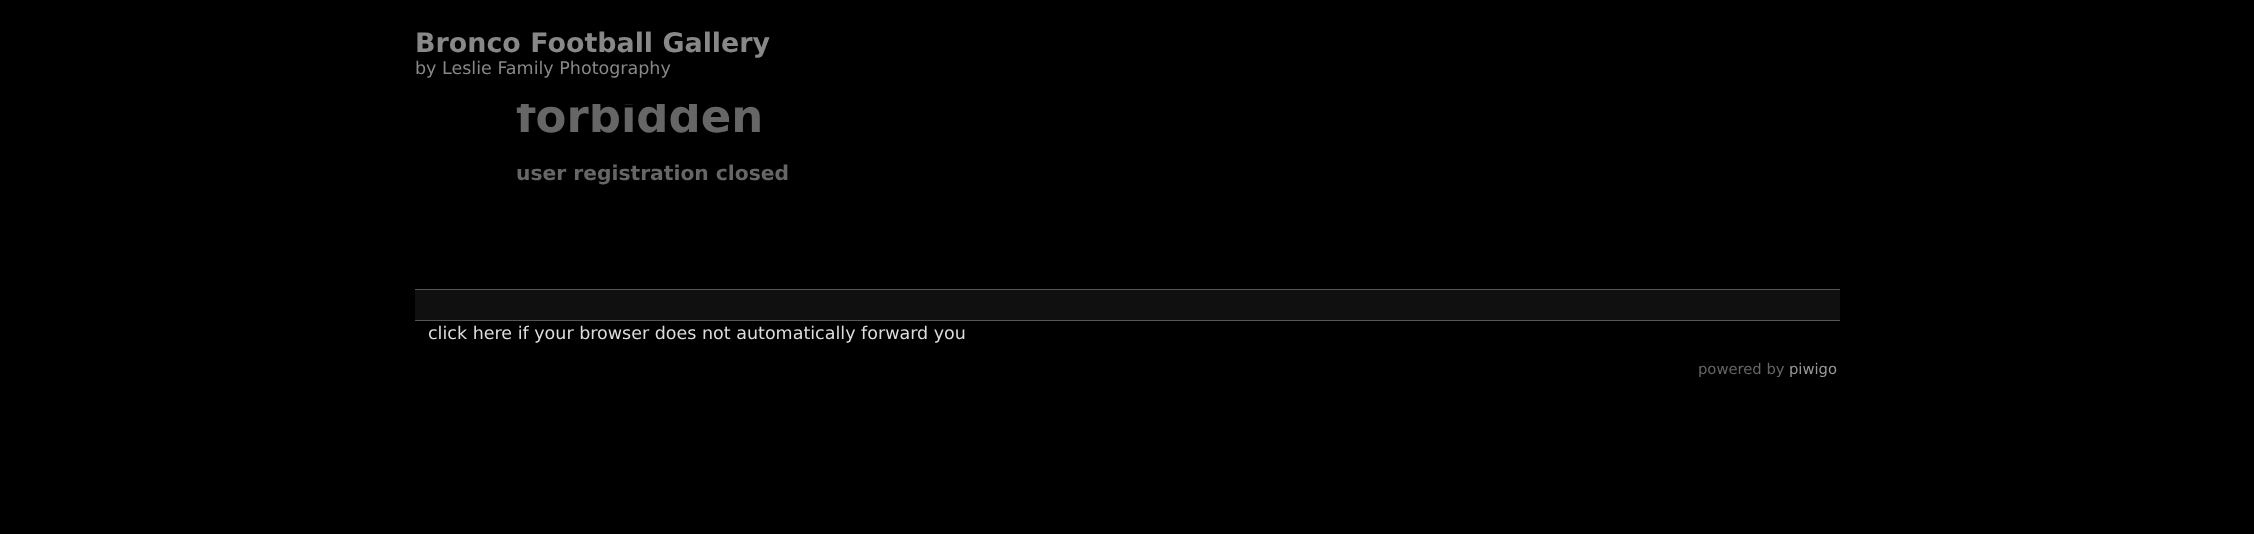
async function draw(canvas) {
  canvas.width = 2254;
  canvas.height = 534;
  const ctx = canvas.getContext('2d');
  ctx.miterLimit = 4;
  ctx.fontKerning = 'normal';
  function label(s, x, y, font, color) {
    ctx.font = font;
    ctx.fillStyle = color;
    ctx.fillText(s, x, y);
  }
  function rect(x, y, w, h, color) {
    ctx.fillStyle = color;
    ctx.fillRect(x, y, w, h);
  }

  rect(0, 0, 2254, 534, '#000');
  label('Bronco Football Gallery', 415, 52, 'bold 26.9px DejaVu Sans', '#888');
  label('by Leslie Family Photography', 415, 74, '17.5px DejaVu Sans', '#888');
  ctx.save();
  ctx.beginPath();
  ctx.rect(415, 104, 1425, 185);
  ctx.clip();
  label('forbidden', 516, 132, 'bold 45px DejaVu Sans', '#666');
  ctx.restore();
  label('user registration closed', 516, 180, 'bold 20.25px DejaVu Sans', '#666');
  rect(415, 290, 1425, 30, '#101010');
  rect(415, 289, 1425, 1, '#555');
  rect(415, 320, 1425, 1, '#555');
  label('click here if your browser does not automatically forward you', 428, 339, '17.5px DejaVu Sans', '#ddd');
  label('powered by', 1698, 374, '14.75px DejaVu Sans', '#666');
  label('piwigo', 1789, 374, '14.75px DejaVu Sans', '#999');
}

draw(document.querySelector('canvas'));
